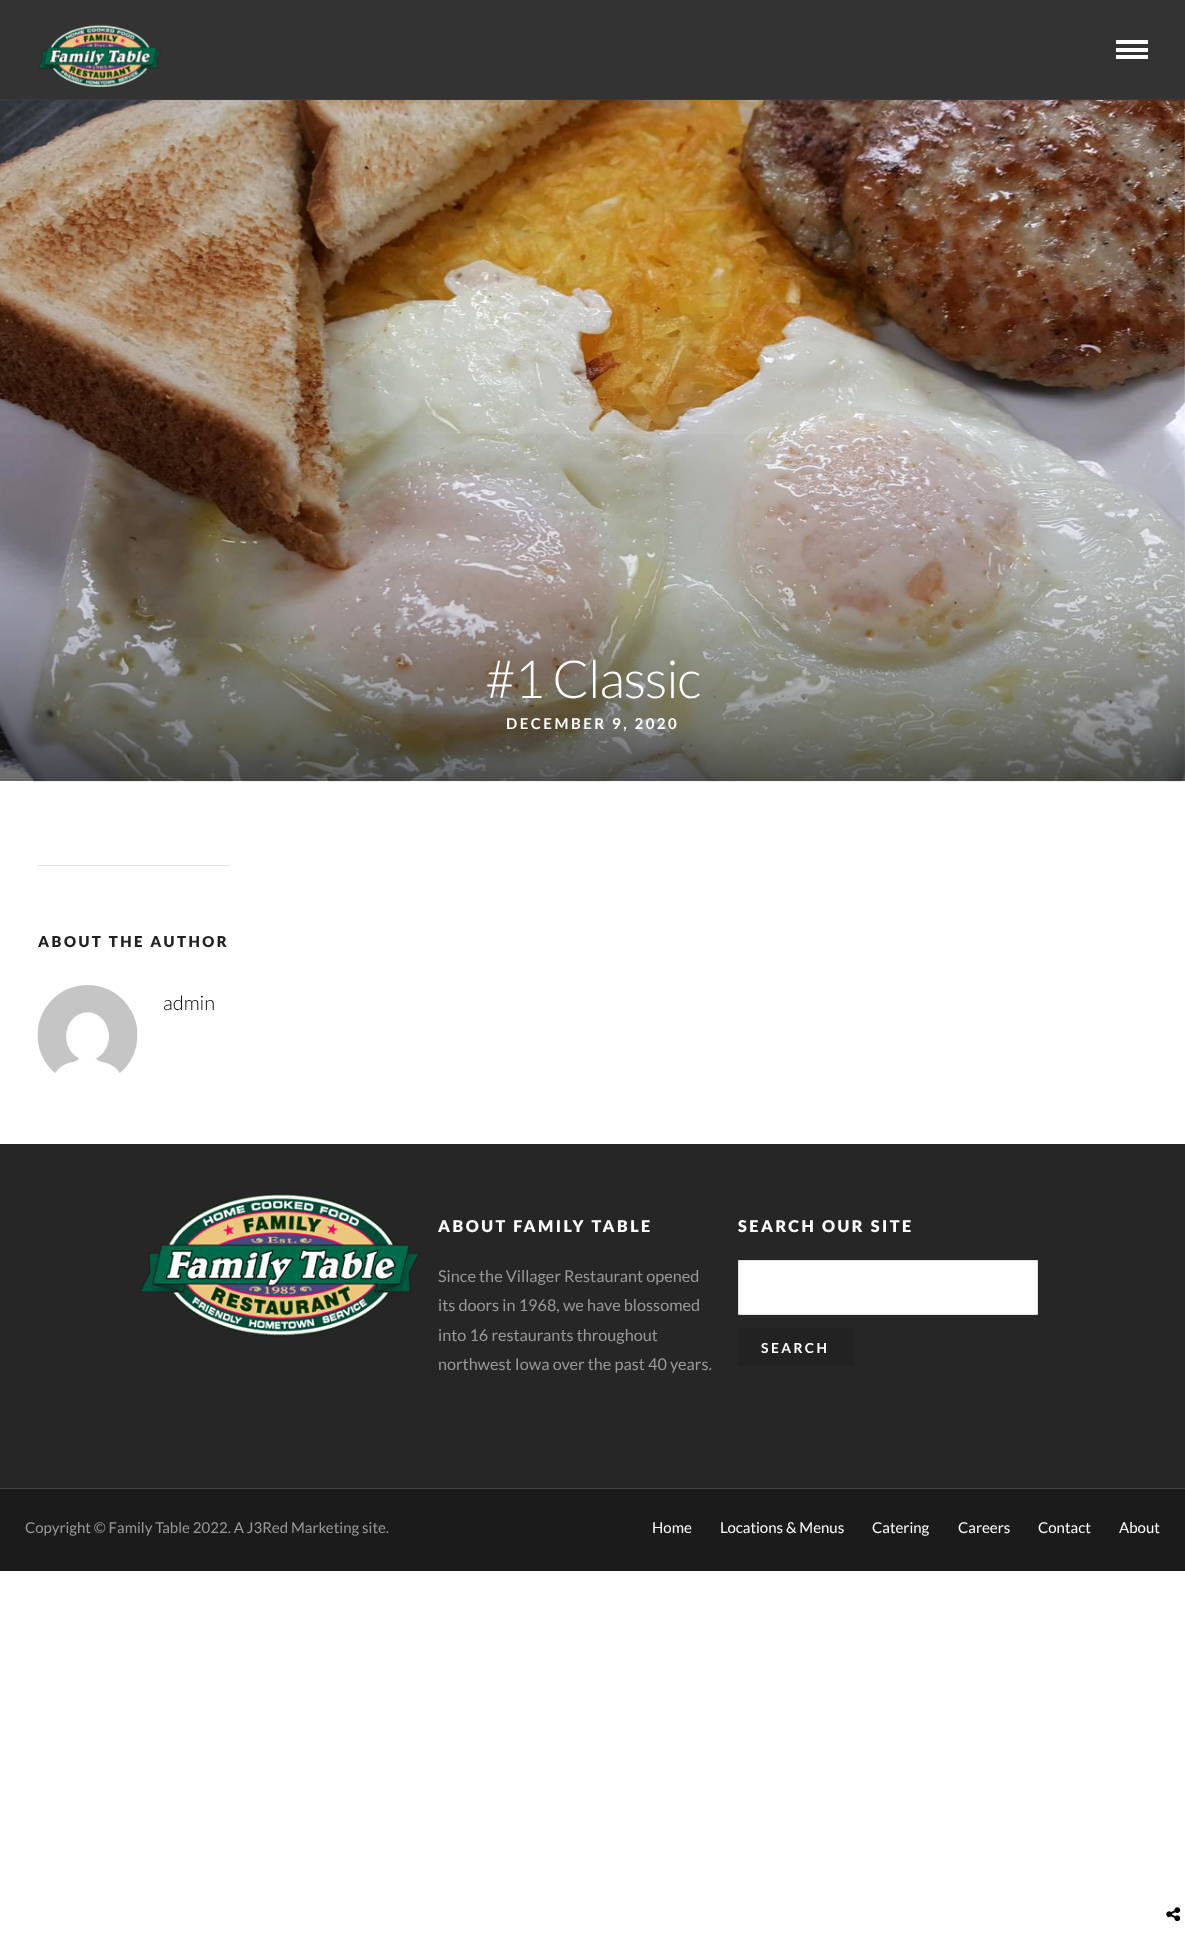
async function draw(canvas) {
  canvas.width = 1185;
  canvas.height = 1953;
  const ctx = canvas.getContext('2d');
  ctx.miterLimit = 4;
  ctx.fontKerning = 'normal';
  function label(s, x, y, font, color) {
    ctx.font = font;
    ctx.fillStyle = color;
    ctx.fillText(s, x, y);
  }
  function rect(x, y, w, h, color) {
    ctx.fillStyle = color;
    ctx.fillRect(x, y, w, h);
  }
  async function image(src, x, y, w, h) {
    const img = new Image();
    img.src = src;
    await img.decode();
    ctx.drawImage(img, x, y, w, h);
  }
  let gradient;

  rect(0, 0, 1185, 1953, '#fff');
  rect(0, 0, 1185, 99, '#333');
  rect(0, 99, 1185, 1, '#3a3a3a');
  await image('assets/img1.png', 38, 24, 123, 64);
  rect(1116, 40, 32, 4, '#fff');
  rect(1116, 48, 32, 4, '#fff');
  rect(1116, 55, 32, 4, '#fff');
  await image('assets/img2.png', 0, 100, 1185, 682);
  gradient = ctx.createLinearGradient(592, 0, 593, 781);
  gradient.addColorStop(0, '#00000000');
  gradient.addColorStop(0.5, '#00000000');
  gradient.addColorStop(0.76, '#0000001a');
  gradient.addColorStop(0.93, '#00000066');
  gradient.addColorStop(1, '#00000096');
  ctx.fillStyle = gradient;
  ctx.fillRect(0, 434, 1185, 347);
  ctx.letterSpacing = '-1.25px';
  label('#1 Classic', 485, 698, '300 52.5px Lato', '#fff');
  ctx.letterSpacing = '2.5px';
  label('DECEMBER 9, 2020', 506, 729, 'bold 15px Lato', '#fff');
  rect(38, 865, 191, 1, '#e1e1e1');
  label('ABOUT THE AUTHOR', 38, 947, '900 15px Lato', '#222');
  await image('assets/img3.png', 37, 985, 101, 88);
  ctx.letterSpacing = '0px';
  label('admin', 163, 1010, '300 20px Lato', '#000');
  await image('assets/img4.png', 1166, 1907, 15, 15);
  rect(0, 1144, 1185, 344, '#262626');
  await image('assets/img5.png', 139, 1193, 281, 144);
  ctx.letterSpacing = '2.5px';
  label('ABOUT FAMILY TABLE', 438, 1232, '900 16.25px Lato', '#fff');
  ctx.letterSpacing = '0px';
  label('Since the Villager Restaurant opened', 438, 1282, '16.25px Lato', '#999');
  label('its doors in 1968, we have blossomed', 438, 1311, '16.25px Lato', '#999');
  label('into 16 restaurants throughout', 438, 1341, '16.25px Lato', '#999');
  label('northwest Iowa over the past 40 years.', 438, 1370, '16.25px Lato', '#999');
  ctx.letterSpacing = '2.5px';
  label('SEARCH OUR SITE', 738, 1232, '900 16.25px Lato', '#fff');
  ctx.beginPath();
  ctx.rect(738.5, 1260.5, 299, 54);
  ctx.fill();
  ctx.strokeStyle = '#e1e1e1';
  ctx.stroke();
  rect(738, 1328, 115, 38, '#222');
  label('SEARCH', 761, 1353, 'bold 13.75px Lato', '#fff');
  rect(0, 1489, 1185, 82, '#1b1b1b');
  rect(0, 1488, 1185, 1, '#444');
  ctx.letterSpacing = '0px';
  label('Copyright © Family Table 2022. A J3Red Marketing site.', 25, 1533, '15px Lato', '#999');
  label('Home', 652, 1533, '15px Lato', '#fff');
  label('Locations & Menus', 720, 1533, '15px Lato', '#fff');
  label('Catering', 872, 1533, '15px Lato', '#fff');
  label('Careers', 958, 1533, '15px Lato', '#fff');
  label('Contact', 1038, 1533, '15px Lato', '#fff');
  label('About', 1119, 1533, '15px Lato', '#fff');
}

draw(document.querySelector('canvas'));
